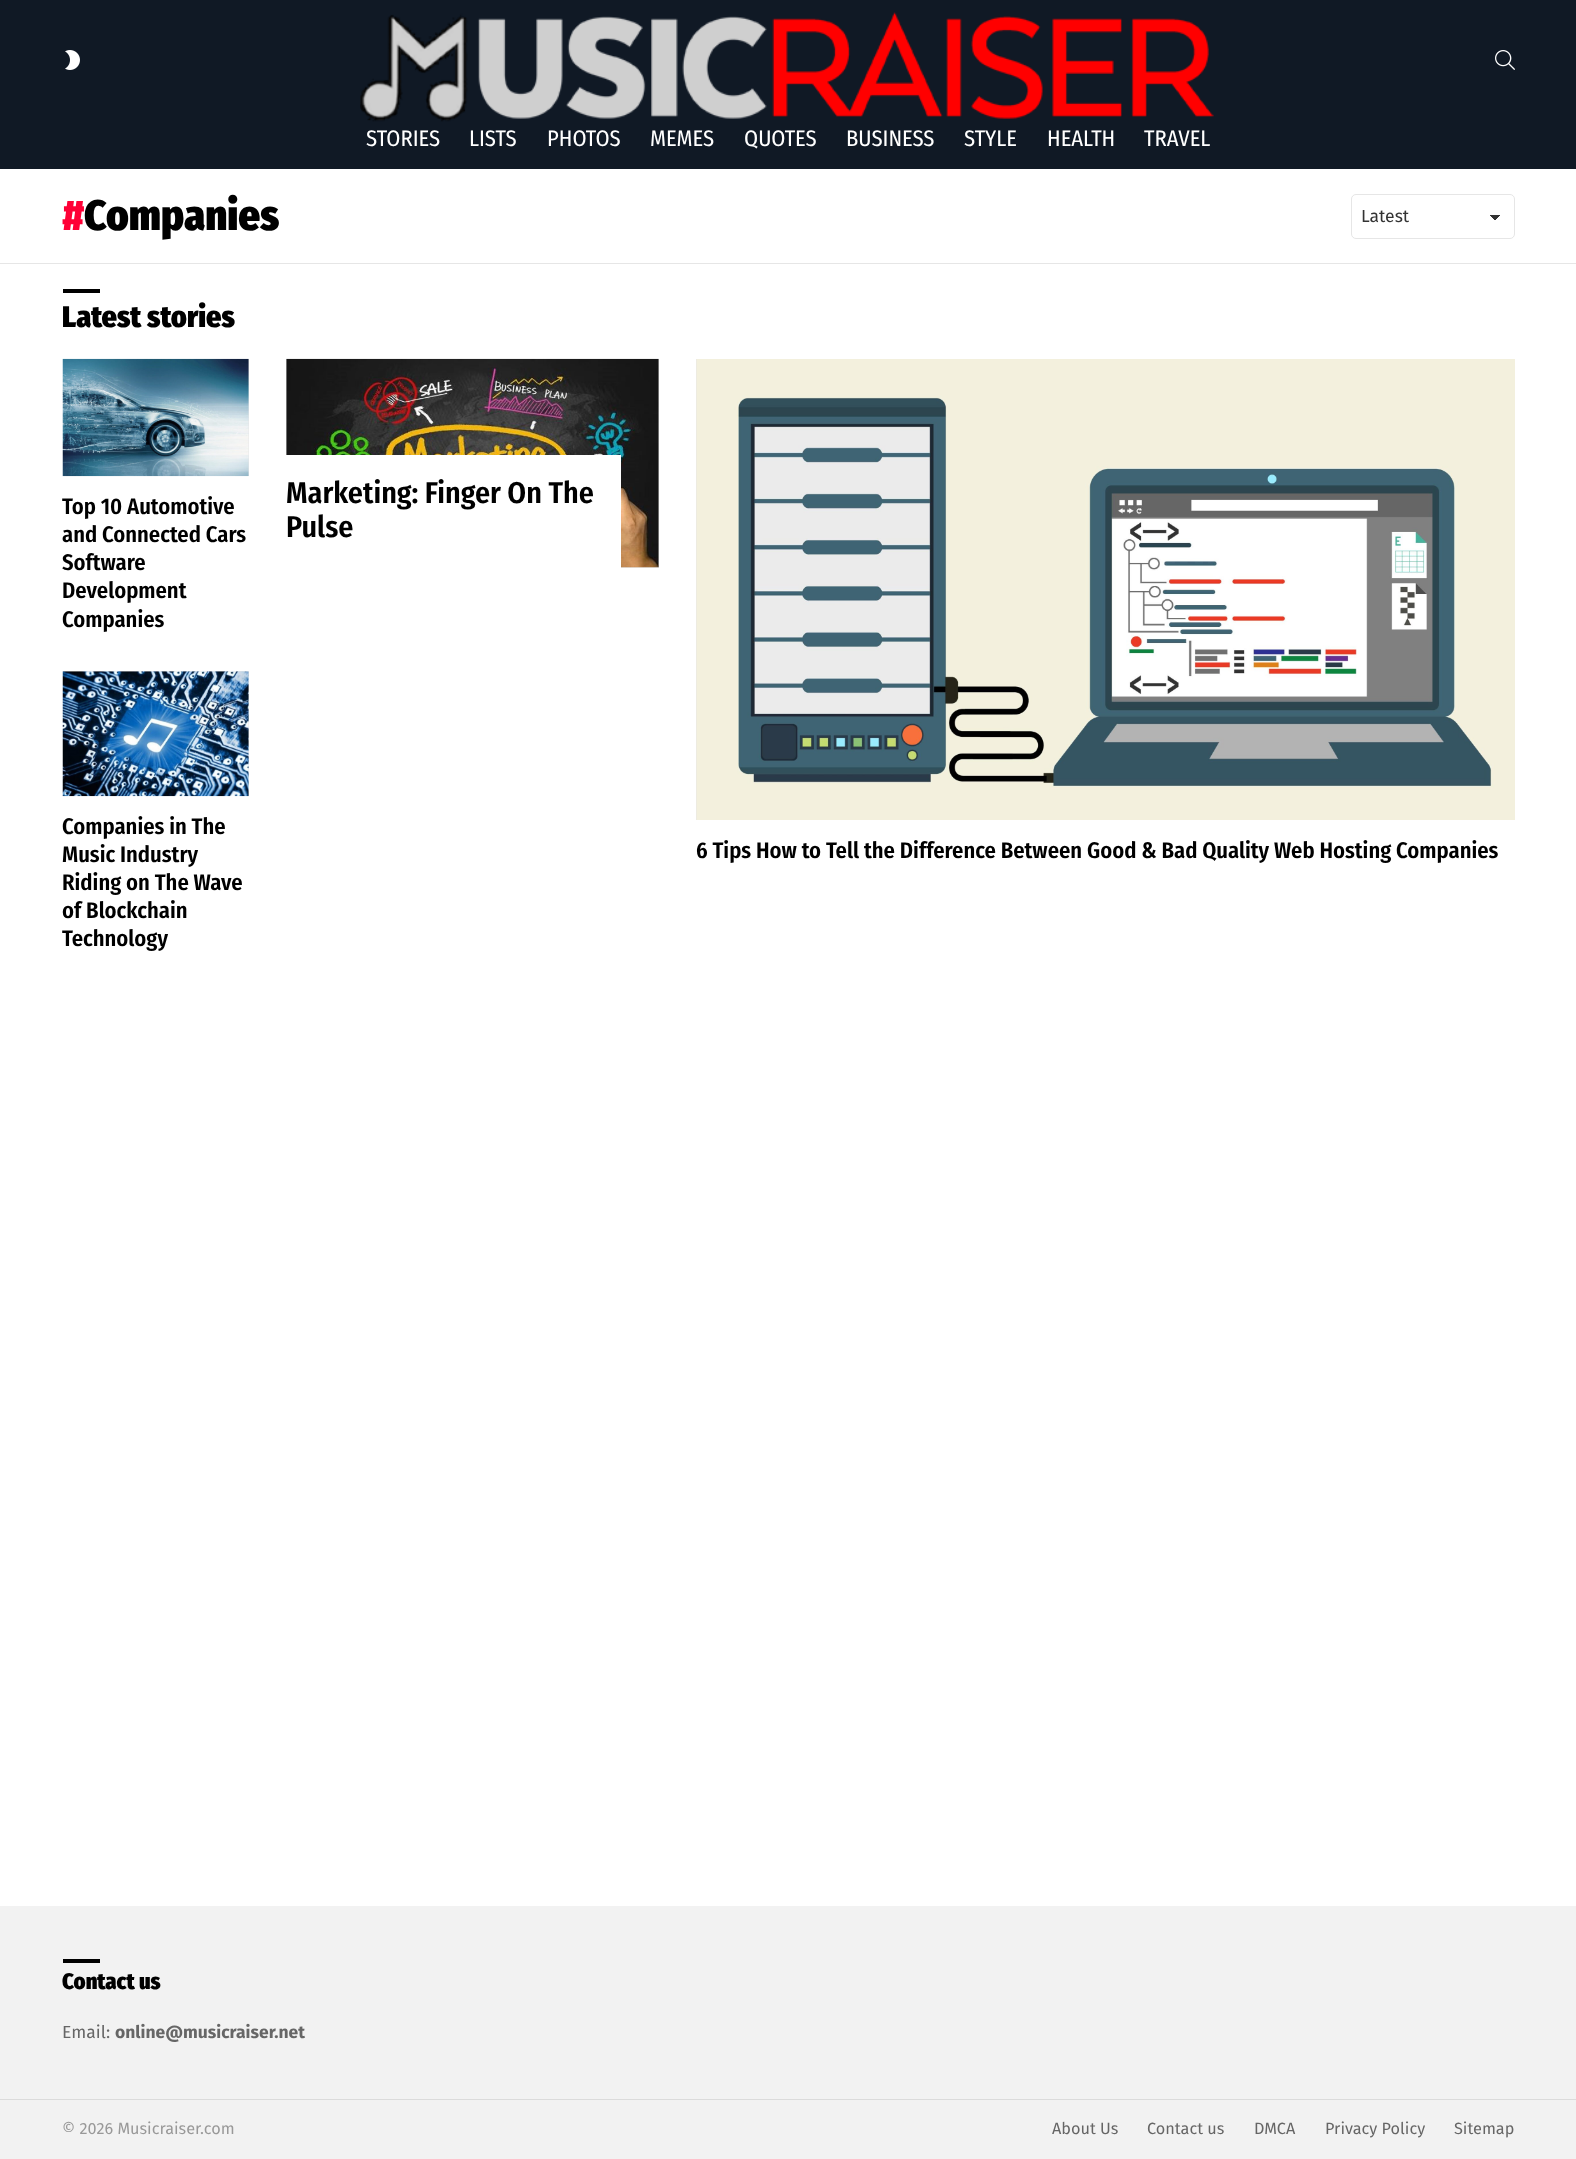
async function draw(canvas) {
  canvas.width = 1576;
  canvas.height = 2159;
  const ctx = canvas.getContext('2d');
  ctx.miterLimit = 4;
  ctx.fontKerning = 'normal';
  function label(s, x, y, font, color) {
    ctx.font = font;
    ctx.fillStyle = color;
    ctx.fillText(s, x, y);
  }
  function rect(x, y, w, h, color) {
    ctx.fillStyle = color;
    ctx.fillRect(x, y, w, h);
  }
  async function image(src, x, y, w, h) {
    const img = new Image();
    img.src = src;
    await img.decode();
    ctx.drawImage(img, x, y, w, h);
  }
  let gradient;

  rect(0, 0, 1576, 2159, '#fff');
  rect(0, 0, 1576, 169, '#101925');
  await image('assets/img1.png', 65, 50, 15, 20);
  await image('assets/img2.png', 360, 12, 854, 110);
  await image('assets/img3.png', 1495, 50, 20, 20);
  label('STORIES', 366, 146, '22.5px Fira Sans Condensed', '#fff');
  label('LISTS', 469, 146, '22.5px Fira Sans Condensed', '#fff');
  label('PHOTOS', 547, 146, '22.5px Fira Sans Condensed', '#fff');
  label('MEMES', 650, 146, '22.5px Fira Sans Condensed', '#fff');
  label('QUOTES', 744, 146, '22.5px Fira Sans Condensed', '#fff');
  label('BUSINESS', 846, 146, '22.5px Fira Sans Condensed', '#fff');
  label('STYLE', 964, 146, '22.5px Fira Sans Condensed', '#fff');
  label('HEALTH', 1047, 146, '22.5px Fira Sans Condensed', '#fff');
  label('TRAVEL', 1144, 146, '22.5px Fira Sans Condensed', '#fff');
  label('#', 62, 230, '900 42.5px Fira Sans Condensed', '#ff0036');
  label('Companies', 84, 230, '900 42.5px Fira Sans Condensed', '#000');
  gradient = ctx.createLinearGradient(1495, 215, 1501, 220);
  gradient.addColorStop(0.5, '#333');
  gradient.addColorStop(0.5, '#fff');
  ctx.fillStyle = gradient;
  ctx.fillRect(1495, 215, 6, 5);
  gradient = ctx.createLinearGradient(1489, 220, 1495, 215);
  gradient.addColorStop(0.5, '#fff');
  gradient.addColorStop(0.5, '#333');
  ctx.fillStyle = gradient;
  ctx.fillRect(1489, 215, 6, 5);
  ctx.beginPath();
  ctx.roundRect(1351.5, 194.5, 163, 44, 4.5);
  ctx.strokeStyle = '#e6e6e6';
  ctx.stroke();
  label('Latest', 1361, 222, '17.5px Fira Sans', '#333');
  rect(0, 263, 1576, 1, '#e6e6e6');
  rect(63, 289, 37, 4, '#000');
  label('Latest stories', 62, 327, '900 30px Fira Sans Condensed', '#000');
  rect(248, 359, 1, 117, '#e6e6e6');
  await image('assets/img4.png', 62, 358, 187, 119);
  label('Top 10 Automotive', 62, 514, '600 22.5px Fira Sans Condensed', '#000');
  label('and Connected Cars', 62, 542, '600 22.5px Fira Sans Condensed', '#000');
  label('Software', 62, 570, '600 22.5px Fira Sans Condensed', '#000');
  label('Development', 62, 598, '600 22.5px Fira Sans Condensed', '#000');
  label('Companies', 62, 627, '600 22.5px Fira Sans Condensed', '#000');
  rect(63, 671, 186, 125, '#e6e6e6');
  await image('assets/img5.png', 62, 671, 187, 126);
  label('Companies in The', 62, 834, '600 22.5px Fira Sans Condensed', '#000');
  label('Music Industry', 62, 862, '600 22.5px Fira Sans Condensed', '#000');
  label('Riding on The Wave', 62, 890, '600 22.5px Fira Sans Condensed', '#000');
  label('of Blockchain', 62, 918, '600 22.5px Fira Sans Condensed', '#000');
  label('Technology', 62, 946, '600 22.5px Fira Sans Condensed', '#000');
  rect(286, 359, 373, 209, '#e6e6e6');
  await image('assets/img6.png', 286, 358, 373, 210);
  rect(286, 455, 335, 113, '#fff');
  label('Marketing: Finger On The', 286, 503, '600 30px Fira Sans Condensed', '#000');
  label('Pulse', 286, 537, '600 30px Fira Sans Condensed', '#000');
  rect(696, 359, 1, 461, '#e6e6e6');
  await image('assets/img7.png', 696, 359, 819, 461);
  label('6 Tips How to Tell the Difference Between Good & Bad Quality Web Hosting Companies', 696, 858, '600 22.5px Fira Sans Condensed', '#000');
  rect(0, 1906, 1576, 193, '#f2f2f2');
  rect(63, 1959, 37, 4, '#000');
  label('Contact us', 62, 1989, '900 22.5px Fira Sans Condensed', '#000');
  label('Email:', 62, 2038, '17.5px Fira Sans', '#666');
  label('online@musicraiser.net', 115, 2038, 'bold 17.5px Fira Sans', '#666');
  rect(0, 2099, 1576, 1, '#dbdbdb');
  rect(0, 2100, 1576, 59, '#f2f2f2');
  label('© 2026 Musicraiser.com', 62, 2134, '16.25px Fira Sans', '#999');
  label('About Us', 1052, 2134, '16.25px Fira Sans', '#666');
  label('Contact us', 1147, 2134, '16.25px Fira Sans', '#666');
  label('DMCA', 1254, 2134, '16.25px Fira Sans', '#666');
  label('Privacy Policy', 1325, 2134, '16.25px Fira Sans', '#666');
  label('Sitemap', 1454, 2134, '16.25px Fira Sans', '#666');
}

draw(document.querySelector('canvas'));
